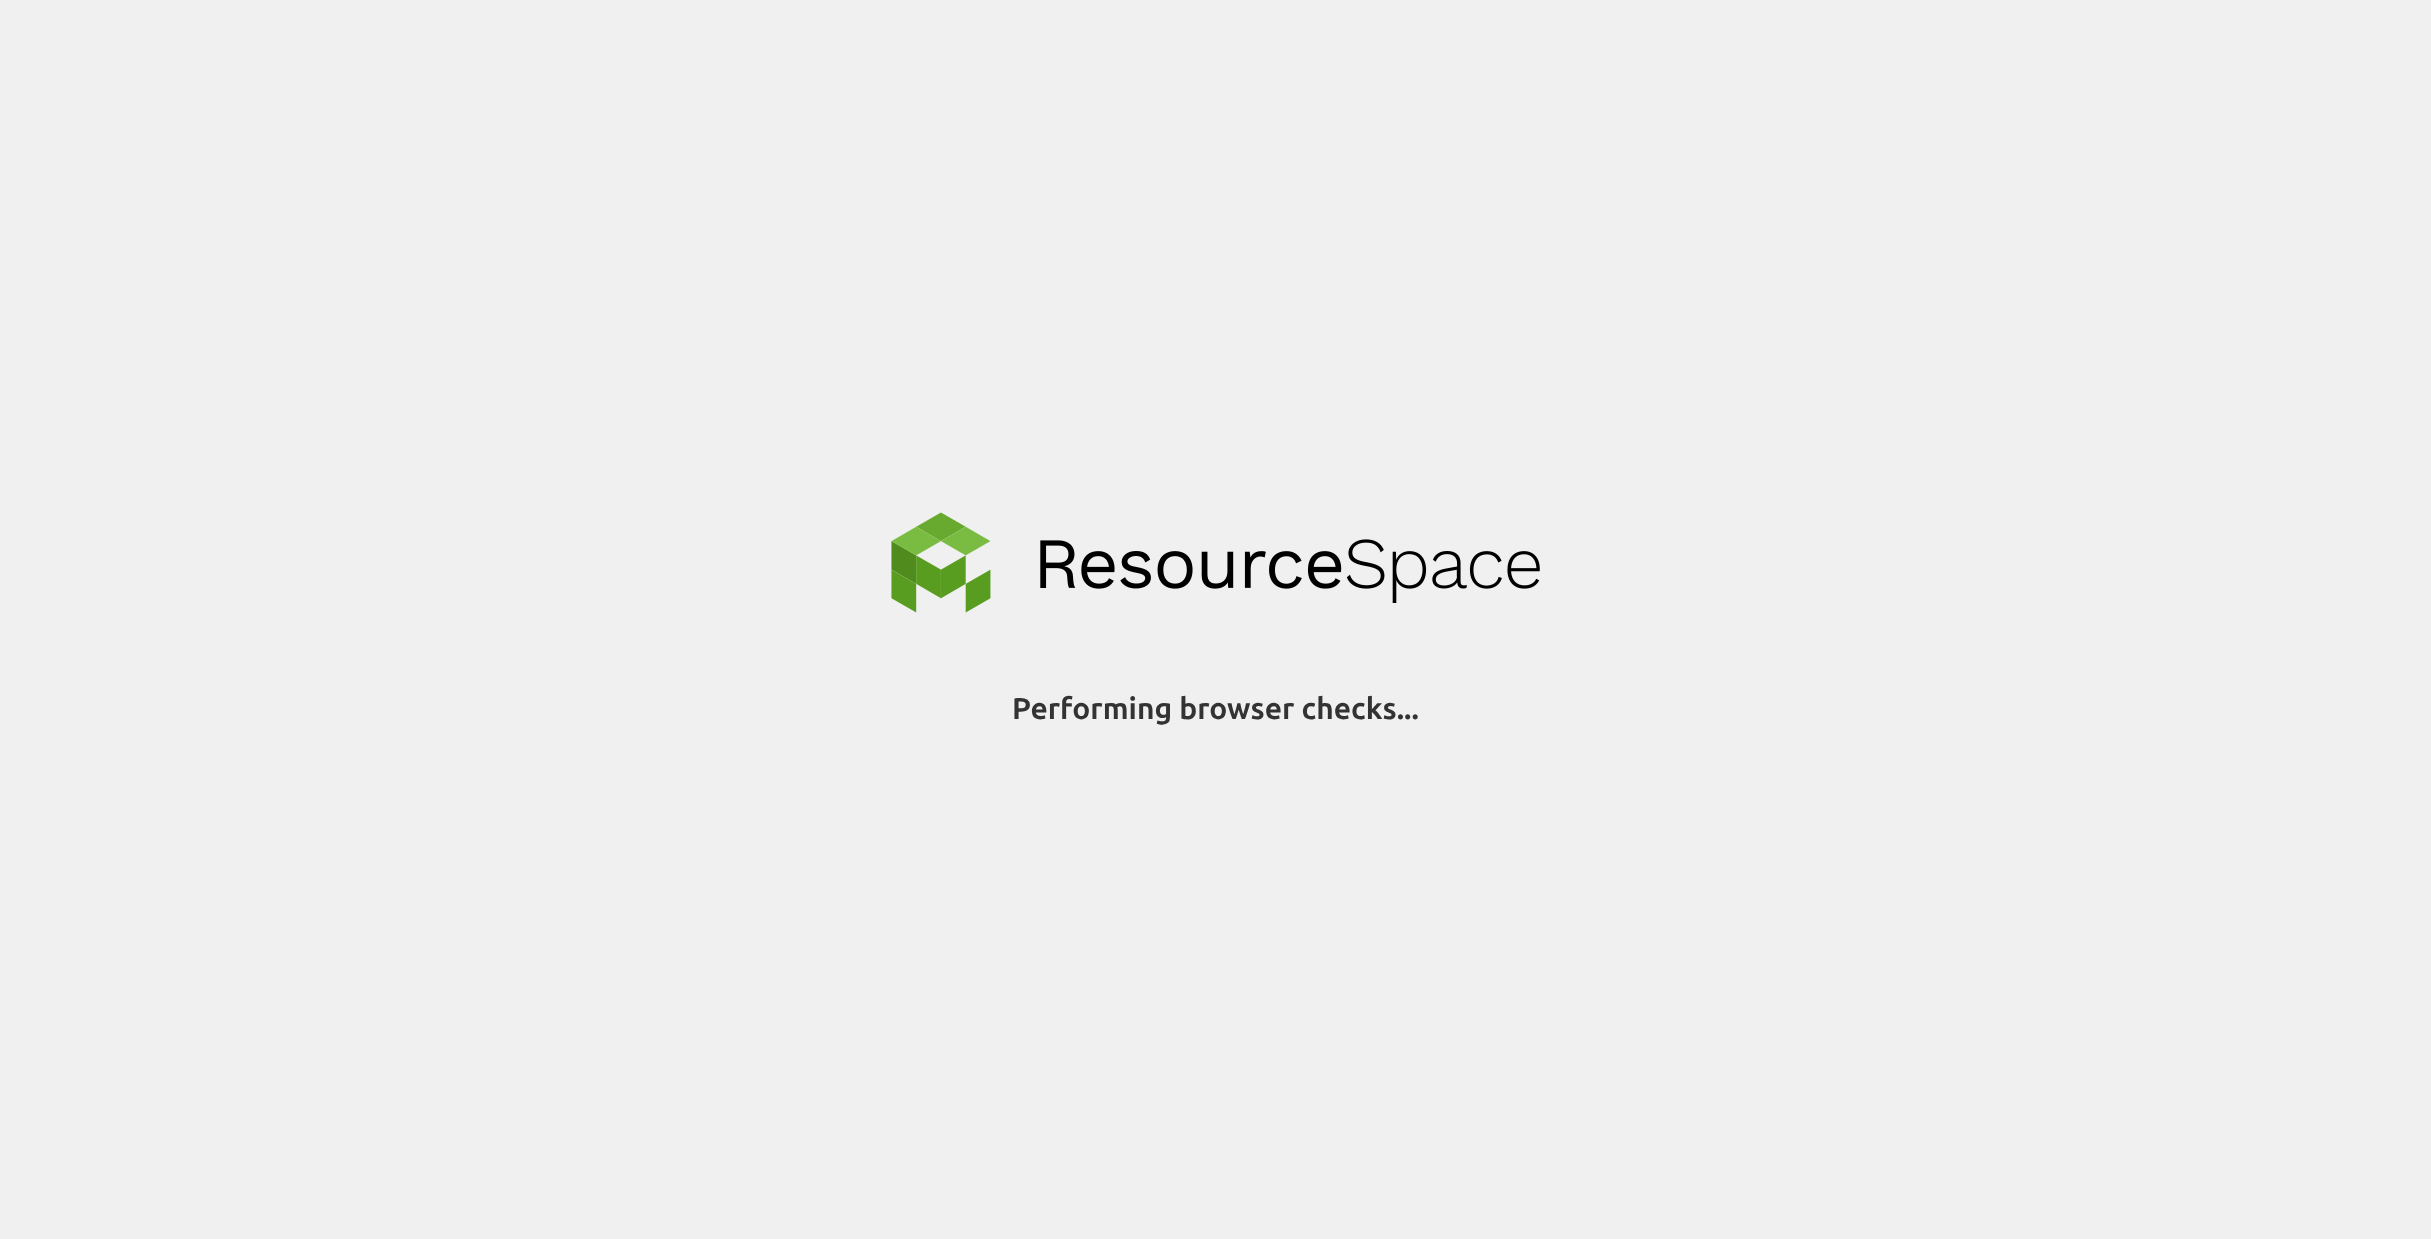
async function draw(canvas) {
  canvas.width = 2431;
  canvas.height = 1239;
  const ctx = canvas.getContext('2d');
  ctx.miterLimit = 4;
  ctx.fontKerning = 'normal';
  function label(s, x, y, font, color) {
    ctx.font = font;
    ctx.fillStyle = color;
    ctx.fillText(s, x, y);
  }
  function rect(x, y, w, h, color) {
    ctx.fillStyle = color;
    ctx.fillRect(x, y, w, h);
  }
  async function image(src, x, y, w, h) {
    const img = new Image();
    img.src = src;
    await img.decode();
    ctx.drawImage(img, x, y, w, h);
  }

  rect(0, 0, 2431, 1239, '#f0f0f0');
  await image('assets/img1.png', 891, 512, 649, 101);
  label('Performing browser checks...', 1012, 719, 'bold 30px Ubuntu', '#333');
}

draw(document.querySelector('canvas'));
